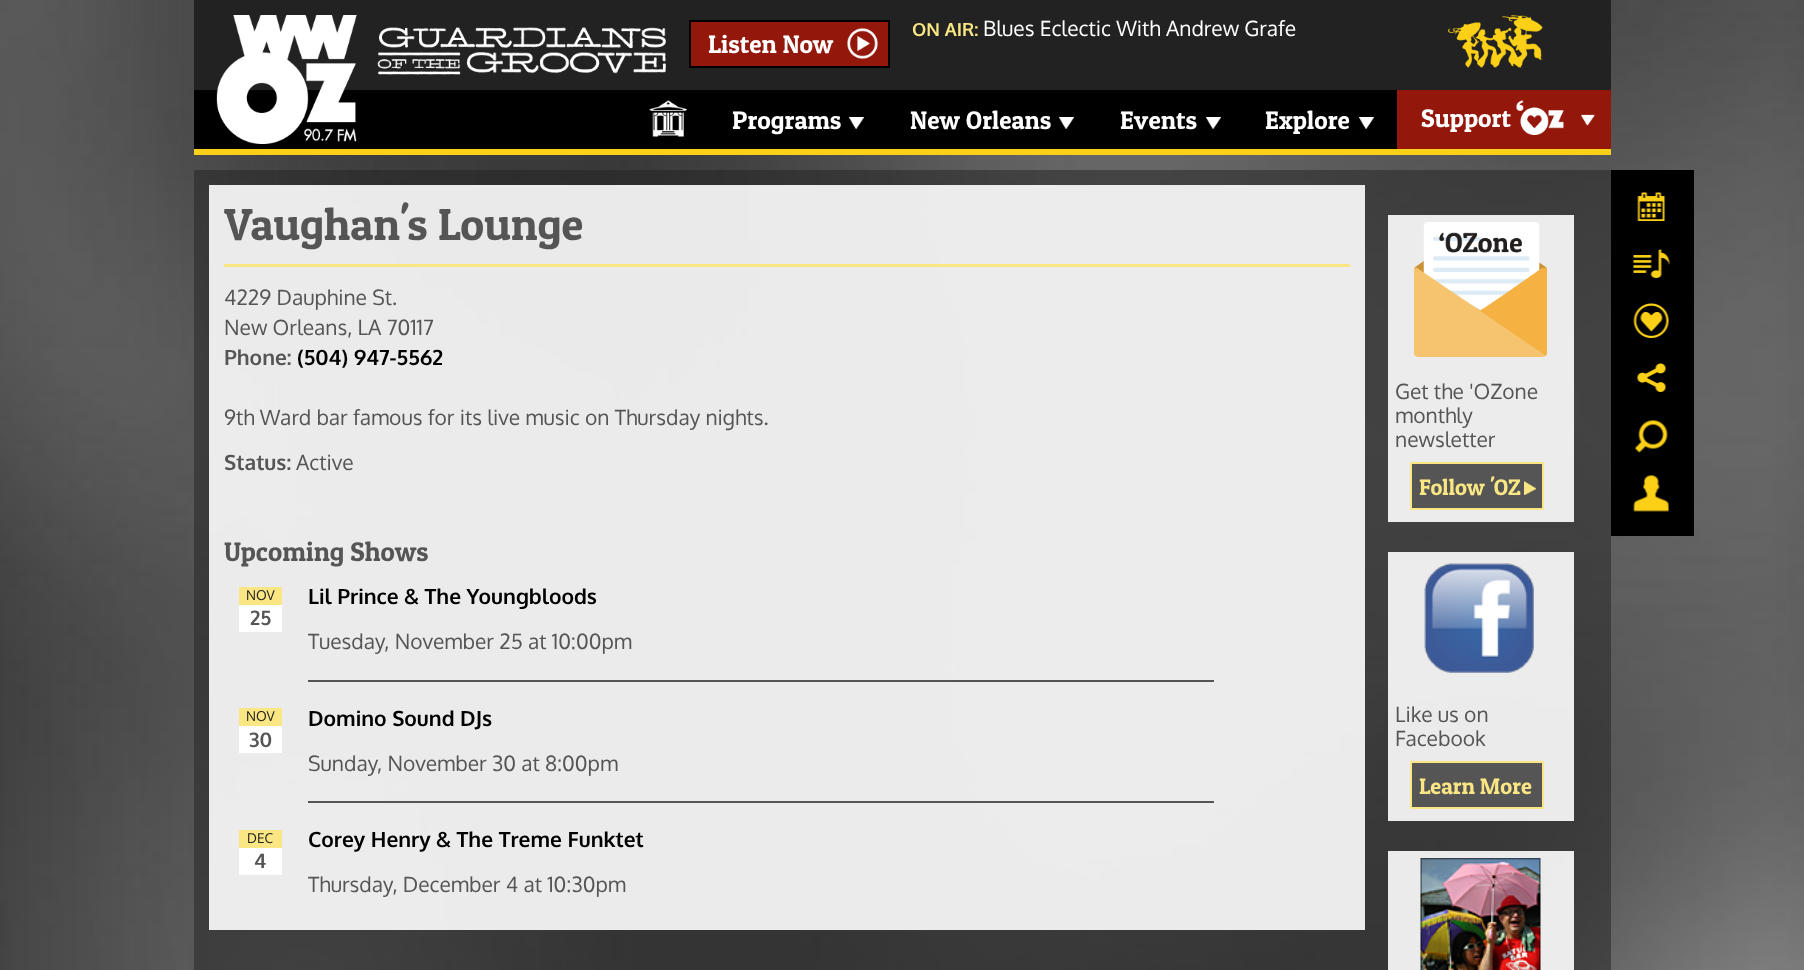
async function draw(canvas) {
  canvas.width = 1804;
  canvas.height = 970;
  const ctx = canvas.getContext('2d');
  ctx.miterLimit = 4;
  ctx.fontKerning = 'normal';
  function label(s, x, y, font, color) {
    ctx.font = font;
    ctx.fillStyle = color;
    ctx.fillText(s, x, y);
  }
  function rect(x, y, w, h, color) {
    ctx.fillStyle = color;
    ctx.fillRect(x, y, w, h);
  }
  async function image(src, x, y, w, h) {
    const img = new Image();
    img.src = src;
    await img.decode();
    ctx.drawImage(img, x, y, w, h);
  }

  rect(0, 0, 1804, 970, '#fff');
  await image('assets/img1.png', 0, 0, 1804, 970);
  rect(194, 149, 1417, 6, '#fcd018');
  rect(194, 0, 1417, 90, '#222');
  rect(194, 90, 1203, 59, '#000');
  await image('assets/img5.png', 649, 100, 38, 37);
  await image('assets/img2.png', 216, 15, 450, 129);
  label('ON AIR:', 912, 36, 'bold 18px Oxygen', '#fae683');
  label('Blues Eclectic With Andrew Grafe', 983, 36, '21px Oxygen', '#fff');
  ctx.fillStyle = '#94170c';
  ctx.beginPath();
  ctx.rect(690, 21, 199, 46);
  ctx.fill();
  ctx.strokeStyle = '#000';
  ctx.lineWidth = 2;
  ctx.stroke();
  label('Listen Now', 708, 53, '25.5px Patua One', '#fff');
  await image('assets/img3.png', 847, 28, 31, 31);
  await image('assets/img4.png', 1447, 15, 96, 53);
  label('Programs', 732, 129, '25.5px Patua One', '#fff');
  await image('assets/img6.png', 849, 117, 15, 12);
  label('New Orleans', 910, 129, '25.5px Patua One', '#fff');
  await image('assets/img6.png', 1059, 117, 15, 12);
  label('Events', 1120, 129, '25.5px Patua One', '#fff');
  await image('assets/img7.png', 1206, 117, 15, 12);
  label('Explore', 1265, 129, '25.5px Patua One', '#fff');
  await image('assets/img6.png', 1359, 117, 15, 12);
  rect(1397, 90, 214, 59, '#94170c');
  label('Support', 1421, 127, '25.5px Patua One', '#fff');
  await image('assets/img8.png', 1516, 100, 79, 35);
  rect(194, 170, 1417, 800, '#22222280');
  rect(209, 185, 1156, 745, '#ffffffe6');
  rect(224, 264, 1126, 3, '#fae683');
  label('Vaughan\'s Lounge', 224, 240, '45px Patua One', '#555');
  label('4229 Dauphine St.', 224, 305, '21px Oxygen', '#555');
  label('New Orleans, LA 70117', 224, 335, '21px Oxygen', '#555');
  label('Phone:', 224, 365, 'bold 21px Oxygen', '#555');
  label('(504) 947-5562', 297, 365, 'bold 21px Oxygen', '#000');
  label('9th Ward bar famous for its live music on Thursday nights.', 224, 425, '21px Oxygen', '#555');
  label('Status:', 224, 470, 'bold 21px Oxygen', '#555');
  label('Active', 296, 470, '21px Oxygen', '#555');
  label('Upcoming Shows', 224, 561, '27px Patua One', '#555');
  rect(239, 587, 43, 18, '#fae683');
  label('NOV', 246, 600, '13.5px Oxygen', '#212221');
  rect(239, 605, 43, 27, '#fff');
  label('25', 250, 625, 'bold 20px Oxygen', '#555');
  label('Lil Prince & The Youngbloods', 308, 604, 'bold 21px Oxygen', '#000');
  label('Tuesday, November 25 at 10:00pm', 308, 649, '21px Oxygen', '#555');
  rect(308, 680, 906, 2, '#555');
  rect(239, 708, 43, 18, '#fae683');
  label('NOV', 246, 721, '13.5px Oxygen', '#212221');
  rect(239, 726, 43, 27, '#fff');
  label('30', 249, 747, 'bold 20px Oxygen', '#555');
  label('Domino Sound DJs', 308, 726, 'bold 21px Oxygen', '#000');
  label('Sunday, November 30 at 8:00pm', 308, 771, '21px Oxygen', '#555');
  rect(308, 801, 906, 2, '#555');
  rect(239, 830, 43, 18, '#fae683');
  label('DEC', 247, 843, '13.5px Oxygen', '#212221');
  rect(239, 848, 43, 27, '#fff');
  label('4', 254, 868, 'bold 20px Oxygen', '#555');
  label('Corey Henry & The Treme Funktet', 308, 847, 'bold 21px Oxygen', '#000');
  label('Thursday, December 4 at 10:30pm', 308, 892, '21px Oxygen', '#555');
  rect(1388, 215, 186, 307, '#ffffffe6');
  await image('assets/img9.png', 1414, 222, 133, 135);
  label('Get the \'OZone', 1395, 399, '21px Oxygen', '#555');
  label('monthly', 1395, 423, '21px Oxygen', '#555');
  label('newsletter', 1395, 447, '21px Oxygen', '#555');
  rect(1412, 464, 130, 44, '#555');
  await image('assets/img10.png', 1524, 481, 12, 14);
  ctx.strokeStyle = '#fae683';
  ctx.strokeRect(1411, 463, 132, 46);
  label('Follow \'OZ', 1419, 495, '22.5px Patua One', '#fae683');
  rect(1388, 552, 186, 269, '#ffffffe6');
  await image('assets/img11.png', 1424, 563, 110, 110);
  label('Like us on', 1395, 722, '21px Oxygen', '#555');
  label('Facebook', 1395, 746, '21px Oxygen', '#555');
  ctx.beginPath();
  ctx.rect(1411, 762, 132, 46);
  ctx.fill();
  ctx.stroke();
  label('Learn More', 1419, 794, '22.5px Patua One', '#fae683');
  rect(1388, 851, 186, 119, '#ffffffe6');
  await image('assets/img12.png', 1420, 858, 121, 112);
  rect(1611, 170, 83, 366, '#000');
  await image('assets/img13.png', 1637, 192, 28, 29);
  await image('assets/img14.png', 1633, 249, 37, 29);
  await image('assets/img15.png', 1633, 303, 36, 35);
  await image('assets/img16.png', 1637, 363, 29, 29);
  await image('assets/img17.png', 1635, 420, 33, 33);
  await image('assets/img18.png', 1633, 475, 36, 37);
}

draw(document.querySelector('canvas'));
